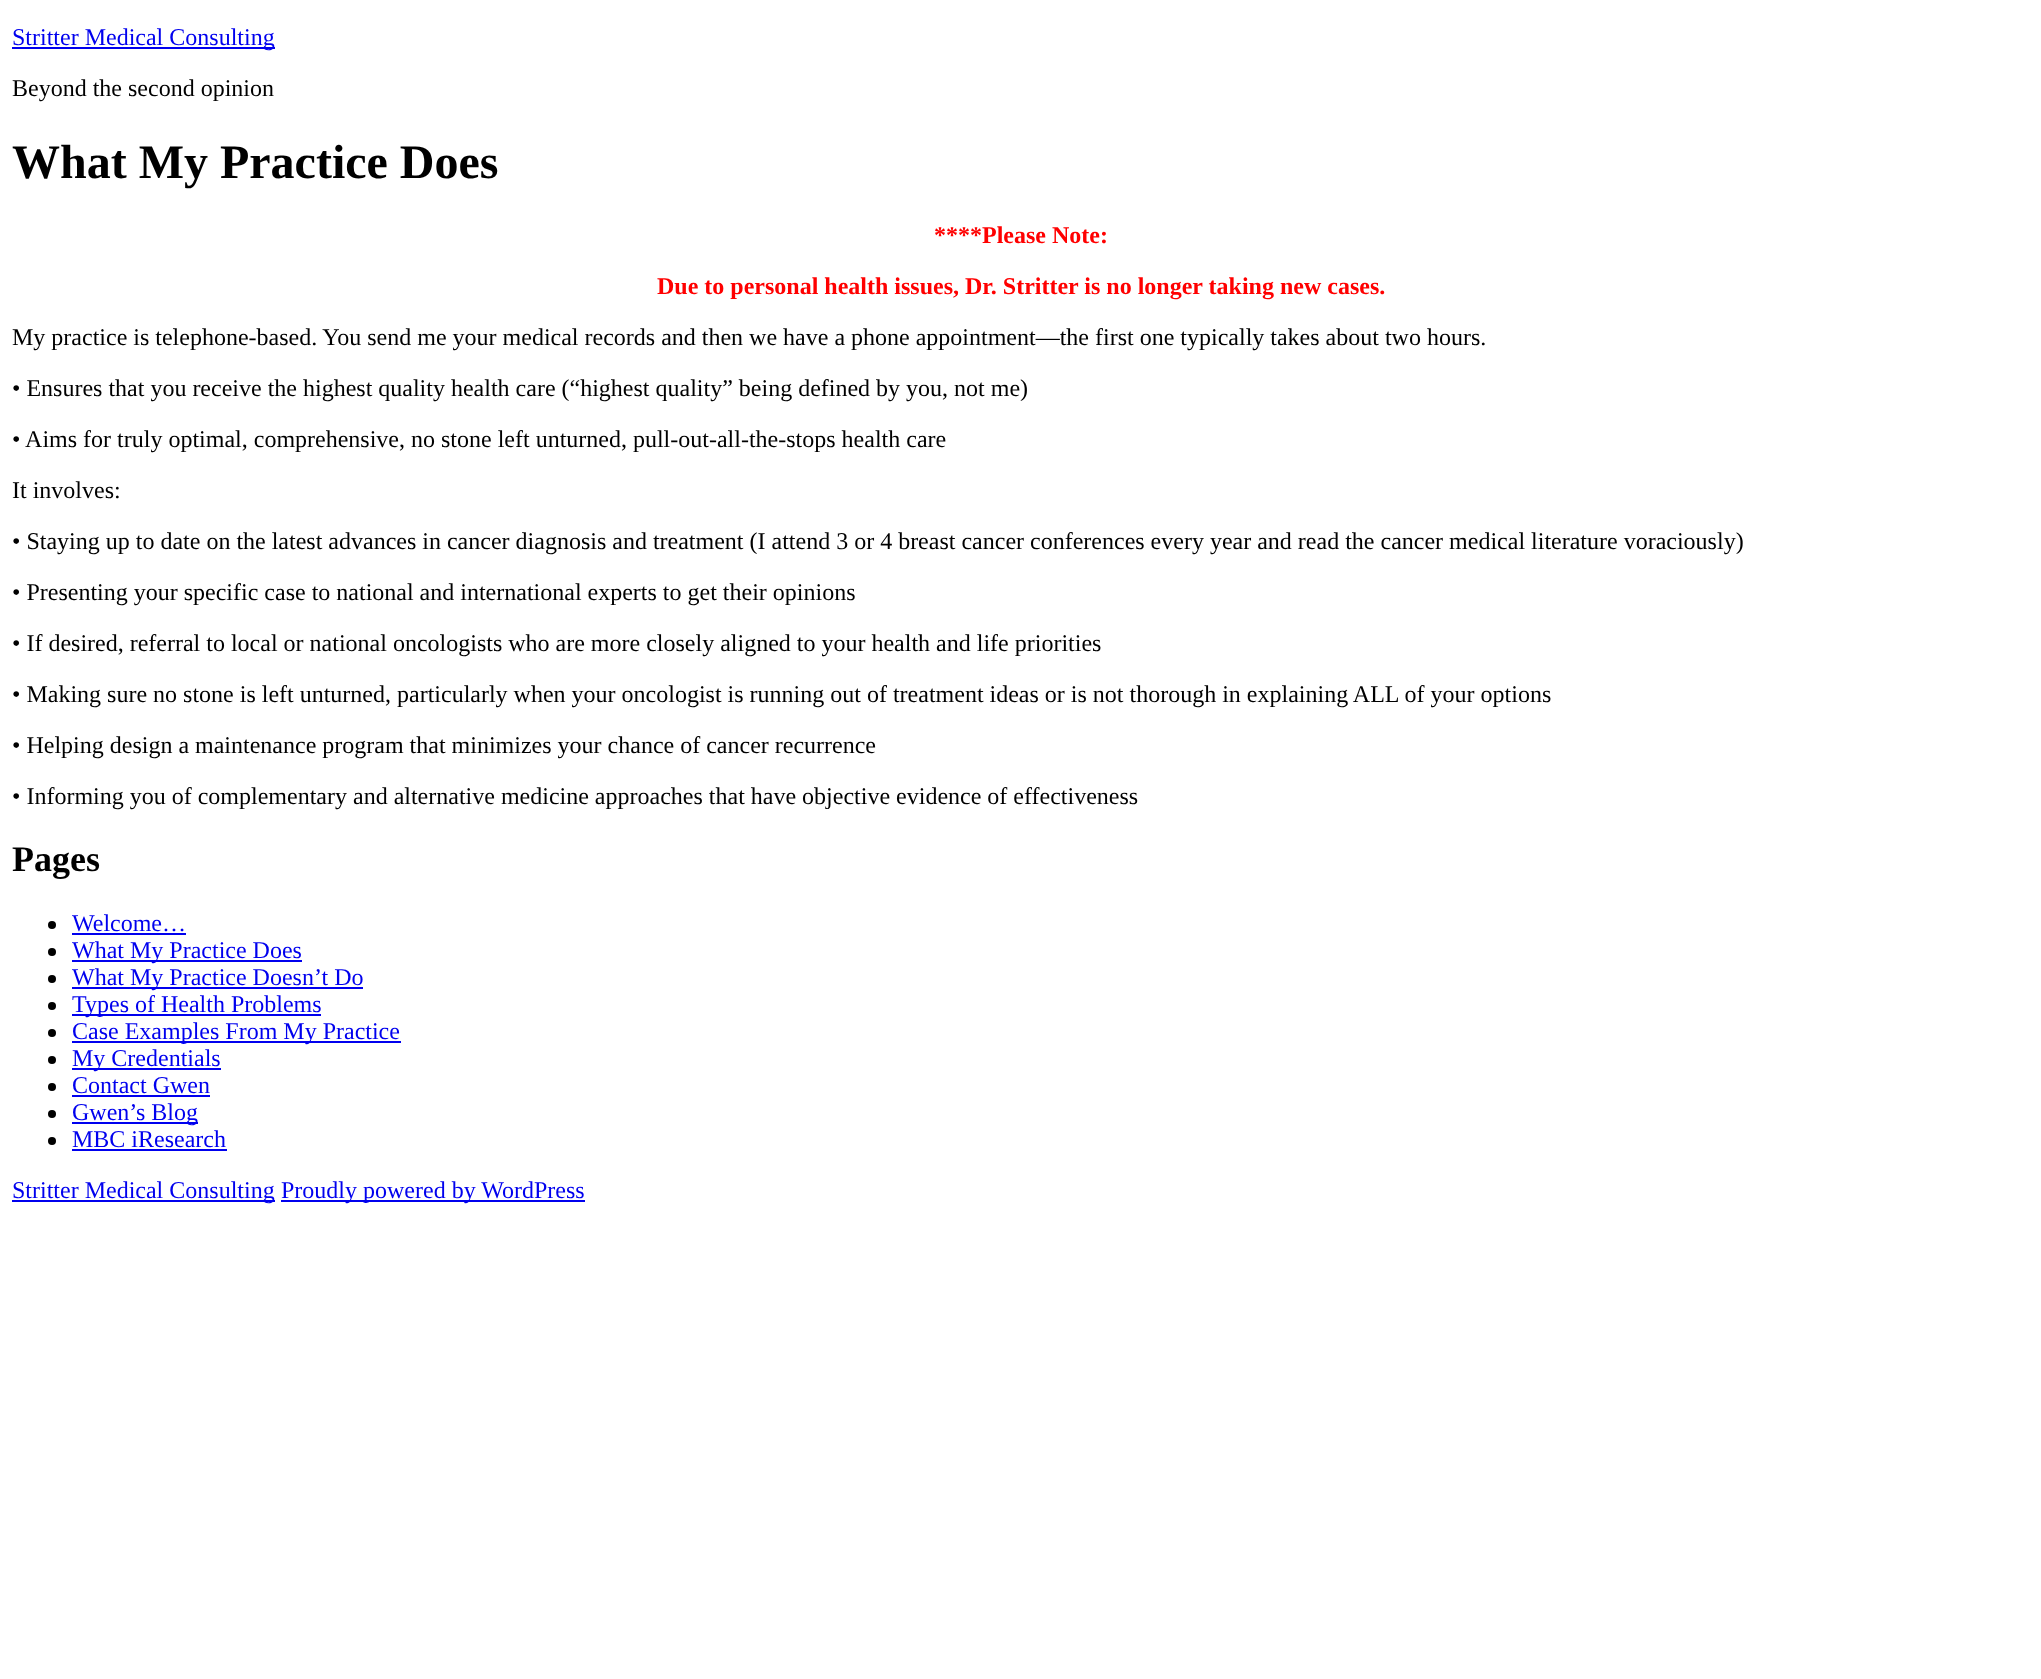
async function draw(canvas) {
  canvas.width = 2041;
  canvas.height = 1679;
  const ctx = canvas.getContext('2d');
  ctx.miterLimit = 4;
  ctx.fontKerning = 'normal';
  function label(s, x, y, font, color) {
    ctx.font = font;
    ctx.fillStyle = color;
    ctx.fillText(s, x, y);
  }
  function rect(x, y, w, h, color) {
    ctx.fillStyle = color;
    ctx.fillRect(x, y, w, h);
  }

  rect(0, 0, 2041, 1679, '#fff');
  rect(12, 47, 263, 2, '#00e');
  label('Stritter Medical Consulting', 12, 45, '24px Liberation Serif', '#00e');
  label('Beyond the second opinion', 12, 96, '24px Liberation Serif', '#000');
  label('What My Practice Does', 12, 178, 'bold 48px Liberation Serif', '#000');
  label('****Please Note:', 934, 243, 'bold 24px Liberation Serif', '#f00');
  label('Due to personal health issues, Dr. Stritter is no longer taking new cases.', 657, 294, 'bold 24px Liberation Serif', '#f00');
  label('My practice is telephone-based. You send me your medical records and then we have a phone appointment—the first one typically takes about two hours.', 12, 345, '24px Liberation Serif', '#000');
  label('• Ensures that you receive the highest quality health care (“highest quality” being defined by you, not me)', 12, 396, '24px Liberation Serif', '#000');
  label('• Aims for truly optimal, comprehensive, no stone left unturned, pull-out-all-the-stops health care', 12, 447, '24px Liberation Serif', '#000');
  label('It involves:', 12, 498, '24px Liberation Serif', '#000');
  label('• Staying up to date on the latest advances in cancer diagnosis and treatment (I attend 3 or 4 breast cancer conferences every year and read the cancer medical literature voraciously)', 12, 549, '24px Liberation Serif', '#000');
  label('• Presenting your specific case to national and international experts to get their opinions', 12, 600, '24px Liberation Serif', '#000');
  label('• If desired, referral to local or national oncologists who are more closely aligned to your health and life priorities', 12, 651, '24px Liberation Serif', '#000');
  label('• Making sure no stone is left unturned, particularly when your oncologist is running out of treatment ideas or is not thorough in explaining ALL of your options', 12, 702, '24px Liberation Serif', '#000');
  label('• Helping design a maintenance program that minimizes your chance of cancer recurrence', 12, 753, '24px Liberation Serif', '#000');
  label('• Informing you of complementary and alternative medicine approaches that have objective evidence of effectiveness', 12, 804, '24px Liberation Serif', '#000');
  label('Pages', 12, 871, 'bold 36px Liberation Serif', '#000');
  ctx.beginPath();
  ctx.arc(52, 925, 4, 0, 2 * Math.PI);
  ctx.fill();
  label('Welcome…', 72, 931, '24px Liberation Serif', '#00e');
  rect(72, 933, 114, 2, '#00e');
  ctx.fillStyle = '#000';
  ctx.beginPath();
  ctx.arc(52, 952, 4, 0, 2 * Math.PI);
  ctx.fill();
  rect(72, 960, 230, 2, '#00e');
  label('What My Practice Does', 72, 958, '24px Liberation Serif', '#00e');
  ctx.fillStyle = '#000';
  ctx.beginPath();
  ctx.arc(52, 979, 4, 0, 2 * Math.PI);
  ctx.fill();
  rect(72, 987, 291, 2, '#00e');
  label('What My Practice Doesn’t Do', 72, 985, '24px Liberation Serif', '#00e');
  ctx.fillStyle = '#000';
  ctx.beginPath();
  ctx.arc(52, 1006, 4, 0, 2 * Math.PI);
  ctx.fill();
  rect(72, 1014, 249, 2, '#00e');
  label('Types of Health Problems', 72, 1012, '24px Liberation Serif', '#00e');
  ctx.fillStyle = '#000';
  ctx.beginPath();
  ctx.arc(52, 1033, 4, 0, 2 * Math.PI);
  ctx.fill();
  rect(72, 1041, 329, 2, '#00e');
  label('Case Examples From My Practice', 72, 1039, '24px Liberation Serif', '#00e');
  ctx.fillStyle = '#000';
  ctx.beginPath();
  ctx.arc(52, 1060, 4, 0, 2 * Math.PI);
  ctx.fill();
  rect(72, 1068, 149, 2, '#00e');
  label('My Credentials', 72, 1066, '24px Liberation Serif', '#00e');
  ctx.fillStyle = '#000';
  ctx.beginPath();
  ctx.arc(52, 1087, 4, 0, 2 * Math.PI);
  ctx.fill();
  label('Contact Gwen', 72, 1093, '24px Liberation Serif', '#00e');
  rect(72, 1095, 138, 2, '#00e');
  ctx.fillStyle = '#000';
  ctx.beginPath();
  ctx.arc(52, 1114, 4, 0, 2 * Math.PI);
  ctx.fill();
  rect(72, 1122, 126, 2, '#00e');
  label('Gwen’s Blog', 72, 1120, '24px Liberation Serif', '#00e');
  ctx.fillStyle = '#000';
  ctx.beginPath();
  ctx.arc(52, 1141, 4, 0, 2 * Math.PI);
  ctx.fill();
  label('MBC iResearch', 72, 1147, '24px Liberation Serif', '#00e');
  rect(72, 1149, 155, 2, '#00e');
  rect(12, 1200, 263, 2, '#00e');
  label('Stritter Medical Consulting', 12, 1198, '24px Liberation Serif', '#00e');
  rect(281, 1200, 304, 2, '#00e');
  label('Proudly powered by WordPress', 281, 1198, '24px Liberation Serif', '#00e');
}

draw(document.querySelector('canvas'));
